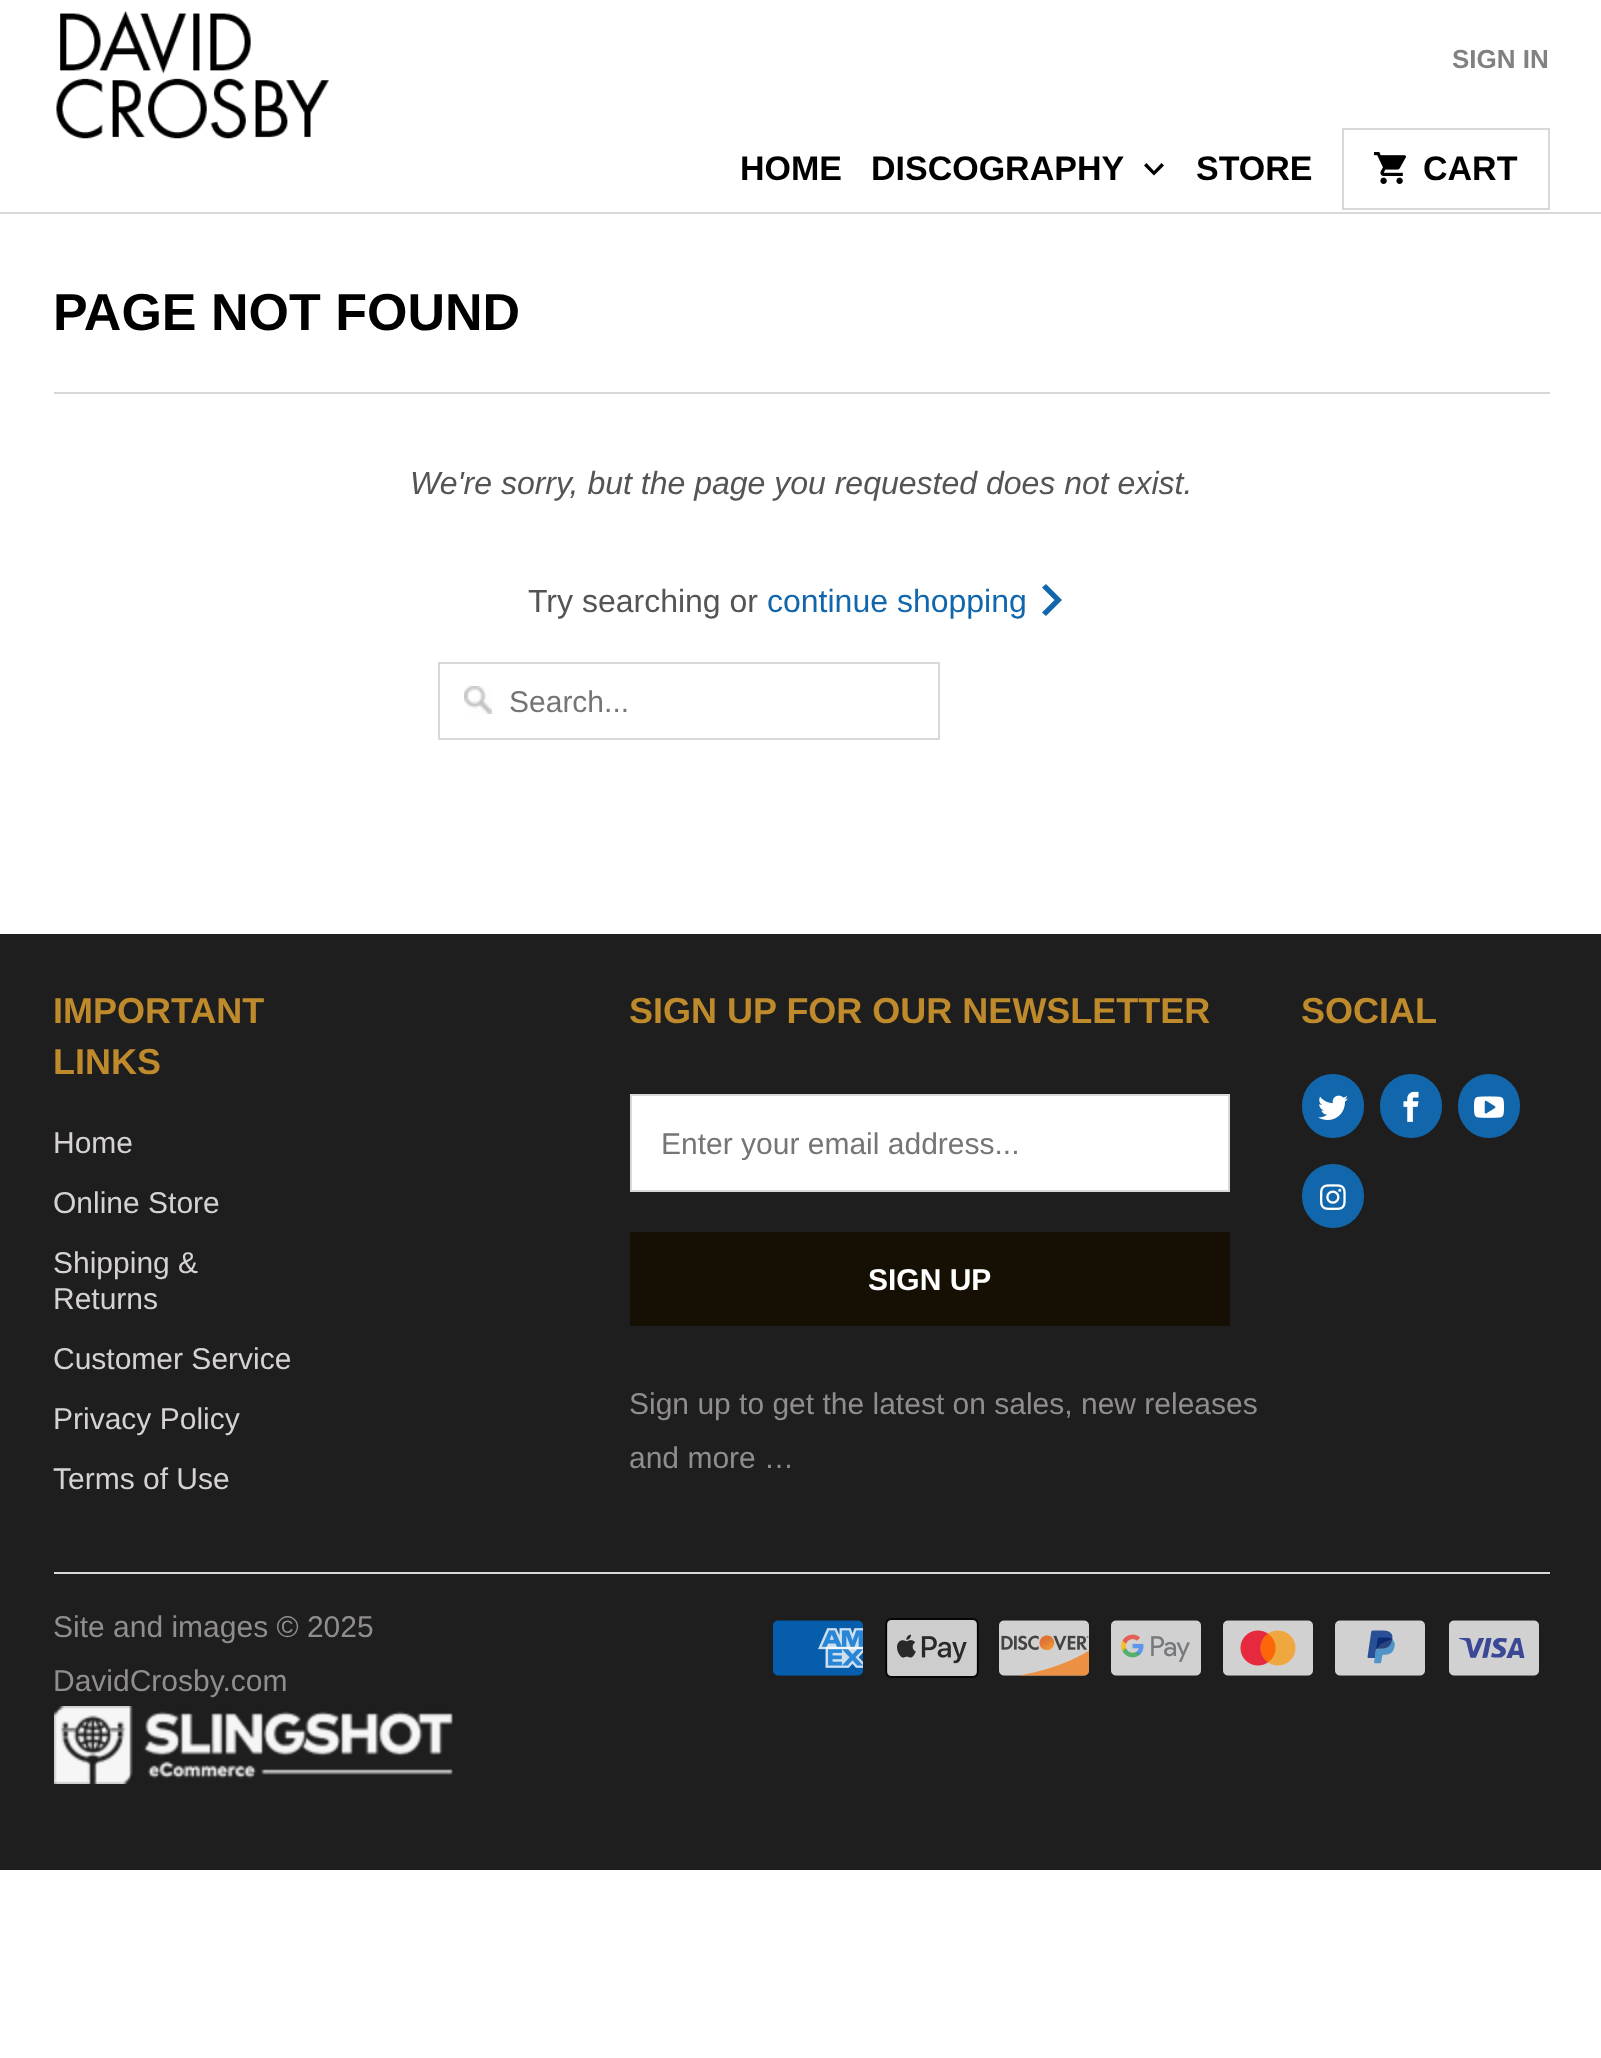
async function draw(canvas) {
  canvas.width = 1601;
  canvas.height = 2058;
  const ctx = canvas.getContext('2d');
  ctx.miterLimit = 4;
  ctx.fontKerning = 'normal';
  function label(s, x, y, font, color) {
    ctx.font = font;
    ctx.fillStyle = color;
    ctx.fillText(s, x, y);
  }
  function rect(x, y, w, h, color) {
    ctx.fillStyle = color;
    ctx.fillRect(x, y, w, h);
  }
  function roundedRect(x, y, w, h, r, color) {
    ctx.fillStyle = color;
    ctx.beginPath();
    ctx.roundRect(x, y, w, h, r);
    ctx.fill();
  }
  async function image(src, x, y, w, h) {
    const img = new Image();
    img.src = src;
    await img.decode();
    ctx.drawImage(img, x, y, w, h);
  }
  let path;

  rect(0, 0, 1601, 2058, '#fff');
  rect(0, 212, 1601, 2, '#d8d8d8');
  await image('assets/img1.png', 56, 11, 273, 128);
  label('SIGN IN', 1452, 68, 'bold 26px Liberation Sans', '#828181');
  label('HOME', 740, 180, 'bold 34px Liberation Sans', '#000');
  label('DISCOGRAPHY', 871, 180, 'bold 34px Liberation Sans', '#000');
  path = new Path2D('M1161.5 163L1154 171L1146.5 163L1144 165.5L1154 175.5L1164 165.5Z');
  ctx.fill(path);
  label('STORE', 1196, 180, 'bold 34px Liberation Sans', '#000');
  ctx.strokeStyle = '#d8d8d8';
  ctx.lineWidth = 2;
  ctx.strokeRect(1343, 129, 206, 80);
  await image('assets/img2.png', 1374, 152, 32, 32);
  label('CART', 1423, 180, 'bold 34px Liberation Sans', '#000');
  rect(54, 392, 1496, 2, '#d8d8d8');
  label('PAGE NOT FOUND', 53, 330, 'bold 52px Liberation Sans', '#000');
  label('We\'re sorry, but the page you requested does not exist.', 410, 494, 'italic 32px Liberation Sans', '#545454');
  label('Try searching or', 528, 612, '32px Liberation Sans', '#545454');
  label('continue shopping', 767, 612, '32px Liberation Sans', '#1267ac');
  path = new Path2D('M1046 584L1042 587.5L1054.5 600L1042 612.5L1046 616L1062 600Z');
  ctx.fill(path);
  await image('assets/img3.png', 464, 686, 28, 28);
  ctx.strokeRect(439, 663, 500, 76);
  label('Search...', 509, 712, '30px Liberation Sans', '#757575');
  rect(0, 934, 1601, 936, '#1e1e1e');
  label('IMPORTANT', 53, 1023, 'bold 36px Liberation Sans', '#be8a2b');
  label('LINKS', 53, 1074, 'bold 36px Liberation Sans', '#be8a2b');
  label('Home', 53, 1153, '30px Liberation Sans', '#d6d2d2');
  label('Online Store', 53, 1213, '30px Liberation Sans', '#d6d2d2');
  label('Shipping &', 53, 1273, '30px Liberation Sans', '#d6d2d2');
  label('Returns', 53, 1309, '30px Liberation Sans', '#d6d2d2');
  label('Customer Service', 53, 1369, '30px Liberation Sans', '#d6d2d2');
  label('Privacy Policy', 53, 1429, '30px Liberation Sans', '#d6d2d2');
  label('Terms of Use', 53, 1489, '30px Liberation Sans', '#d6d2d2');
  label('SIGN UP FOR OUR NEWSLETTER', 629, 1023, 'bold 36px Liberation Sans', '#be8a2b');
  ctx.fillStyle = '#fff';
  ctx.beginPath();
  ctx.rect(631, 1095, 598, 96);
  ctx.fill();
  ctx.stroke();
  ctx.save();
  ctx.beginPath();
  ctx.rect(662, 1126, 516, 34);
  ctx.clip();
  label('Enter your email address...', 661, 1154, '30px Liberation Sans', '#757575');
  ctx.restore();
  rect(630, 1232, 600, 94, '#160f03');
  label('SIGN UP', 868, 1290, 'bold 30px Liberation Sans', '#fff');
  label('Sign up to get the latest on sales, new releases', 629, 1414, '30px Liberation Sans', '#918d8d');
  label('and more …', 629, 1468, '30px Liberation Sans', '#918d8d');
  label('SOCIAL', 1301, 1023, 'bold 36px Liberation Sans', '#be8a2b');
  roundedRect(1302, 1074, 62, 64, 31, '#1267ac');
  await image('assets/img4.png', 1318, 1095, 30, 25);
  roundedRect(1380, 1074, 62, 64, 31, '#1267ac');
  await image('assets/img5.png', 1403, 1091, 16, 31);
  roundedRect(1458, 1074, 62, 64, 31, '#1267ac');
  await image('assets/img6.png', 1474, 1096, 30, 22);
  roundedRect(1302, 1164, 62, 64, 31, '#1267ac');
  await image('assets/img7.png', 1320, 1184, 26, 26);
  rect(54, 1572, 1496, 2, '#d8d8d8');
  label('Site and images © 2025', 53, 1637, '30px Liberation Sans', '#918d8d');
  label('DavidCrosby.com', 53, 1691, '30px Liberation Sans', '#918d8d');
  await image('assets/img8.png', 54, 1706, 399, 78);
  await image('assets/img9.png', 773, 1620, 90, 56);
  await image('assets/img10.png', 885, 1618, 94, 60);
  await image('assets/img11.png', 999, 1620, 91, 56);
  await image('assets/img12.png', 1111, 1620, 90, 56);
  await image('assets/img13.png', 1223, 1620, 90, 56);
  await image('assets/img14.png', 1335, 1620, 90, 56);
  await image('assets/img15.png', 1449, 1620, 90, 56);
}

draw(document.querySelector('canvas'));
